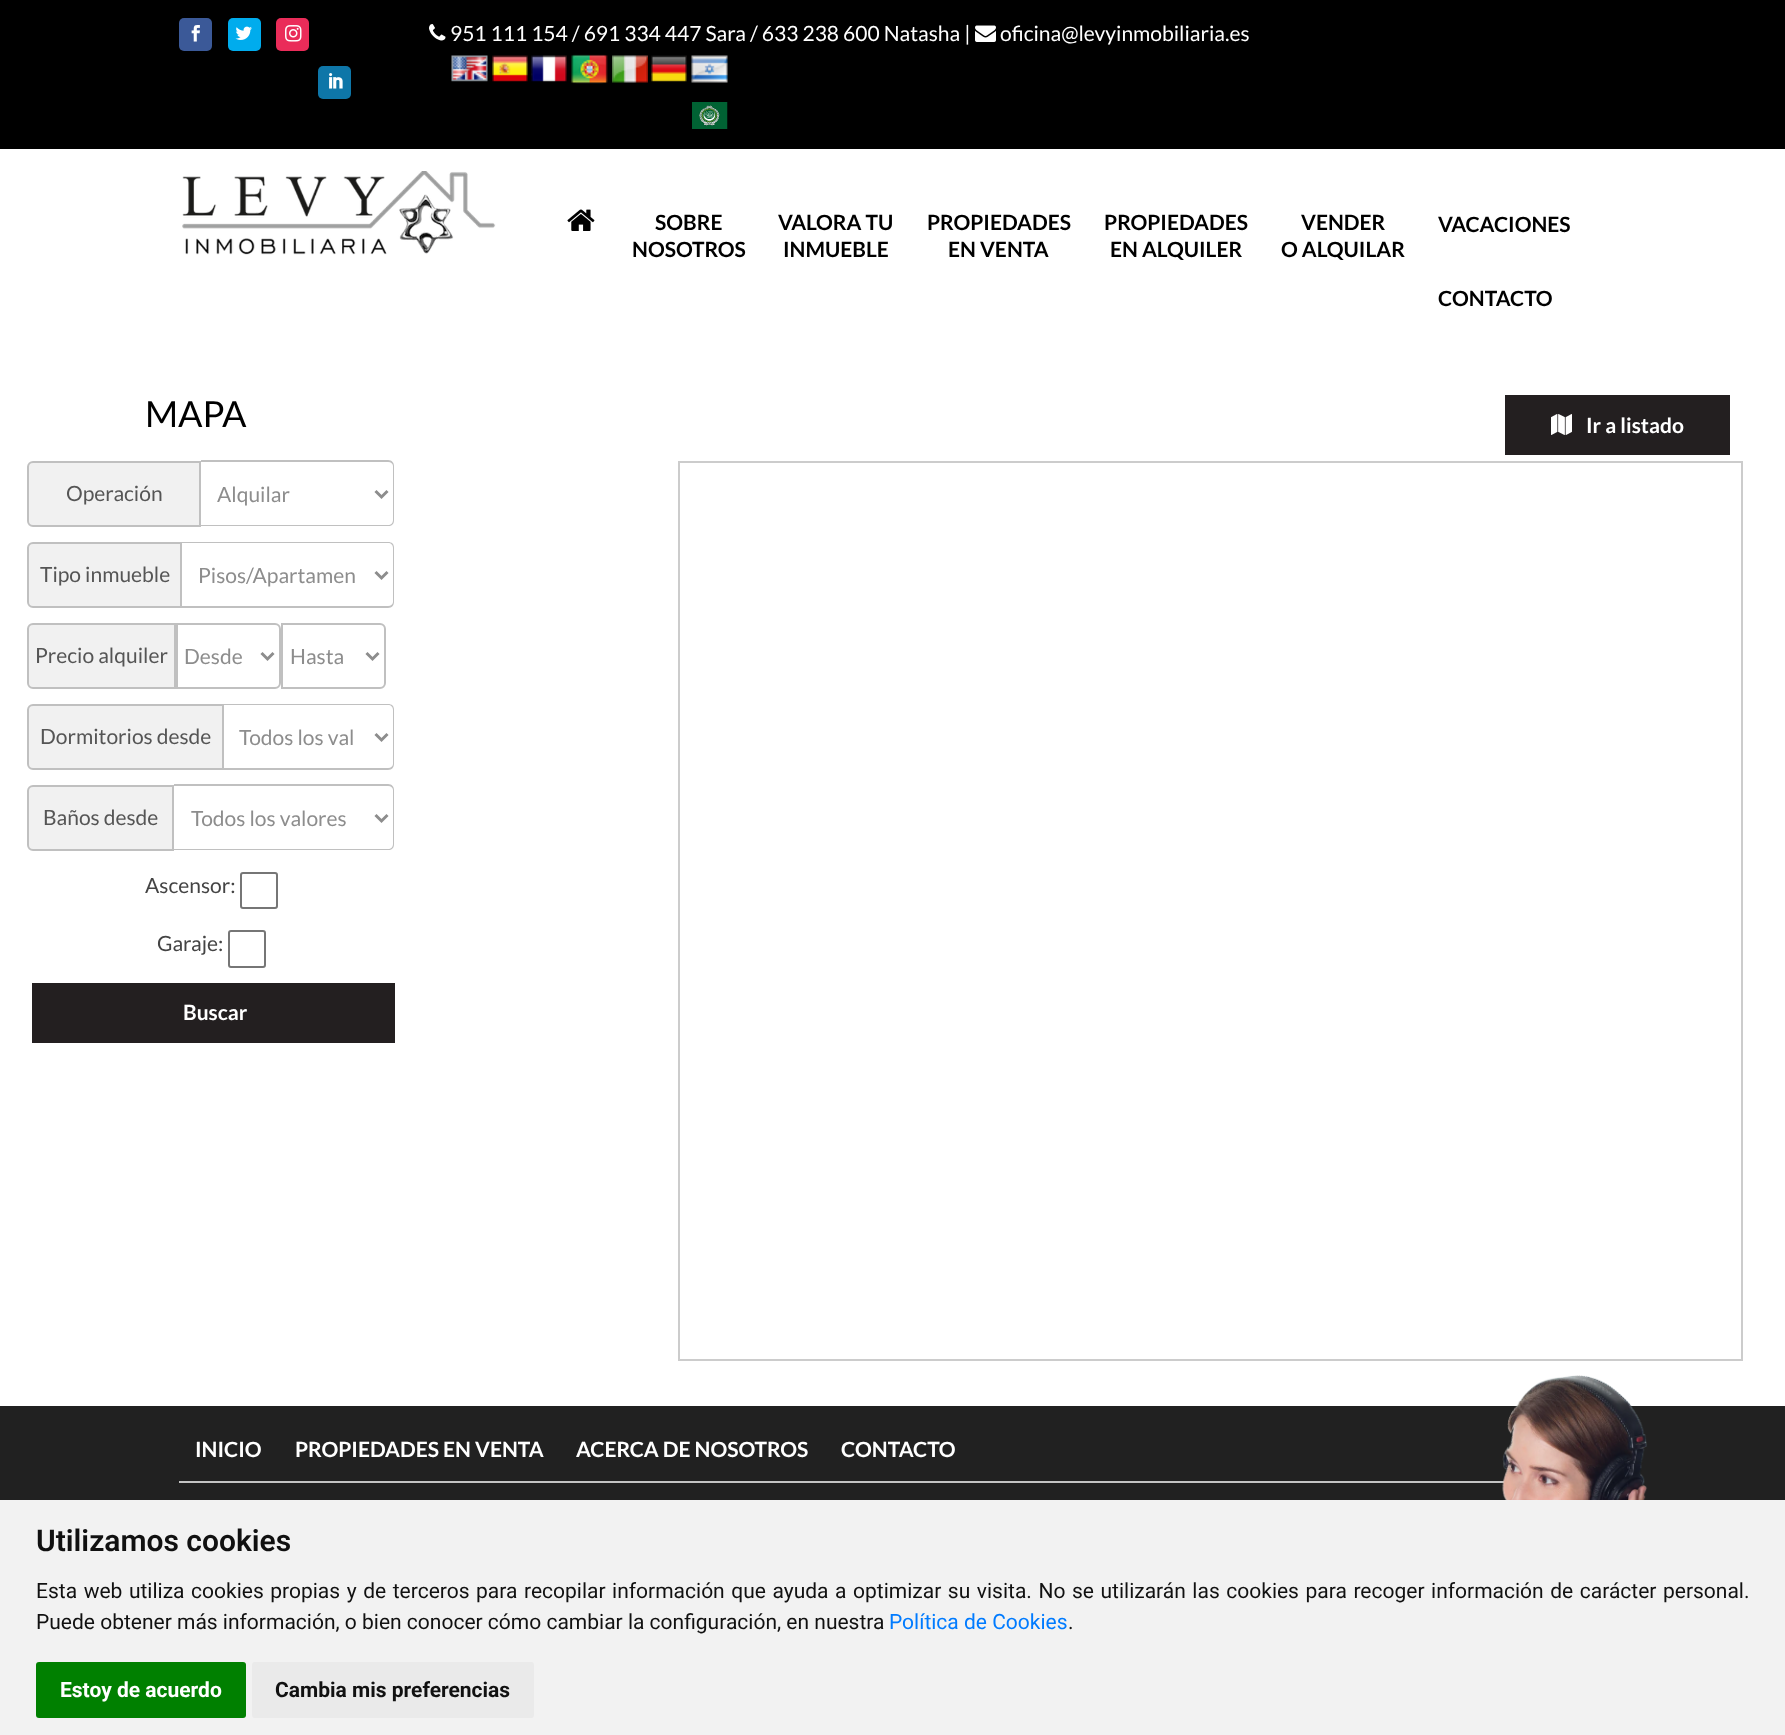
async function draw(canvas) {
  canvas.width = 1785;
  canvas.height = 1735;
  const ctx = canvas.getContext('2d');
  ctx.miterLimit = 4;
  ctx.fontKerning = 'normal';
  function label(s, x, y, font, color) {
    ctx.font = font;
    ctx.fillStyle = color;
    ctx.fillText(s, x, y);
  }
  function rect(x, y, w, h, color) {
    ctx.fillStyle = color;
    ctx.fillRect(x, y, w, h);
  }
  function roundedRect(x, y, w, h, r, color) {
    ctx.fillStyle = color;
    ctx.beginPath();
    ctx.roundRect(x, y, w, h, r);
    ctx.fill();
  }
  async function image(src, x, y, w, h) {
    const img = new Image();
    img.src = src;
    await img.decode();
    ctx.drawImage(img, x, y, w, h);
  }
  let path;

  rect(0, 0, 1785, 1735, '#fff');
  rect(0, 0, 1785, 149, '#000');
  roundedRect(179, 18, 33, 33, 5, '#3b5998');
  await image('assets/img1.png', 191, 25, 9, 17);
  roundedRect(228, 18, 33, 33, 5, '#00aced');
  await image('assets/img2.png', 235, 26, 17, 14);
  roundedRect(276, 18, 33, 33, 5, '#ea2c59');
  await image('assets/img3.png', 285, 25, 17, 17);
  roundedRect(318, 66, 33, 33, 5, '#0e76a8');
  await image('assets/img4.png', 329, 73, 14, 16);
  await image('assets/img5.png', 429, 24, 17, 17);
  label('951 111 154 / 691 334 447 Sara / 633 238 600 Natasha |', 450, 41, '21px Lato', '#fff');
  await image('assets/img6.png', 975, 25, 21, 17);
  label('oficina@levyinmobiliaria.es', 1000, 41, '21px Lato', '#fff');
  await image('assets/img7.png', 451, 55, 37, 27);
  await image('assets/img8.png', 492, 55, 36, 27);
  await image('assets/img9.png', 531, 55, 36, 27);
  await image('assets/img10.png', 571, 54, 37, 30);
  await image('assets/img11.png', 612, 55, 36, 28);
  await image('assets/img12.png', 651, 55, 36, 27);
  await image('assets/img13.png', 691, 55, 37, 28);
  await image('assets/img14.png', 692, 102, 36, 27);
  await image('assets/img15.png', 182, 171, 314, 84);
  await image('assets/img16.png', 567, 209, 28, 22);
  label('SOBRE', 655, 230, 'bold 21px Lato', '#000');
  label('NOSOTROS', 632, 257, 'bold 21px Lato', '#000');
  label('VALORA TU', 778, 230, 'bold 21px Lato', '#000');
  label('INMUEBLE', 783, 257, 'bold 21px Lato', '#000');
  label('PROPIEDADES', 927, 230, 'bold 21px Lato', '#000');
  label('EN VENTA', 948, 257, 'bold 21px Lato', '#000');
  label('PROPIEDADES', 1104, 230, 'bold 21px Lato', '#000');
  label('EN ALQUILER', 1110, 257, 'bold 21px Lato', '#000');
  label('VENDER', 1301, 230, 'bold 21px Lato', '#000');
  label('O ALQUILAR', 1281, 257, 'bold 21px Lato', '#000');
  label('VACACIONES', 1438, 232, 'bold 21px Lato', '#000');
  label('CONTACTO', 1438, 306, 'bold 21px Lato', '#000');
  label('MAPA', 145, 427, '36px Lato', '#000');
  rect(1505, 395, 225, 60, '#231f20');
  await image('assets/img17.png', 1551, 414, 21, 21);
  label('Ir a listado', 1586, 433, 'bold 21px Lato', '#fff');
  ctx.fillStyle = '#f1f1f1';
  ctx.beginPath();
  ctx.roundRect(28, 462, 172, 64, [5, 0, 0, 5]);
  ctx.fill();
  ctx.strokeStyle = '#c0c0c0';
  ctx.lineWidth = 2;
  ctx.stroke();
  label('Operación', 66, 501, '21px Lato', '#555');
  ctx.fillStyle = '#c0c0c0';
  path = new Path2D('M201 460H388C392 460 394 463 394 466V520C394 524 392 526 388 526H201ZM201 462H388C391 462 393 464 393 466V520C393 523 391 525 388 525H201Z');
  ctx.fill(path, 'evenodd');
  path = new Path2D('M375.5 491L381.5 497L387.5 491');
  ctx.strokeStyle = '#8d8d8d';
  ctx.lineWidth = 3;
  ctx.stroke(path);
  label('Alquilar', 217, 502, '21px Lato', '#8d8d8d');
  ctx.fillStyle = '#f1f1f1';
  ctx.beginPath();
  ctx.roundRect(28, 543, 153, 64, [5, 0, 0, 5]);
  ctx.fill();
  ctx.strokeStyle = '#c0c0c0';
  ctx.lineWidth = 2;
  ctx.stroke();
  label('Tipo inmueble', 40, 582, '21px Lato', '#555');
  ctx.fillStyle = '#c0c0c0';
  path = new Path2D('M182 542H388C392 542 394 544 394 548V602C394 605 392 608 388 608H182ZM182 543H388C391 543 393 545 393 548V602C393 604 391 606 388 606H182Z');
  ctx.fill(path, 'evenodd');
  path = new Path2D('M375.5 572L381.5 578L387.5 572');
  ctx.strokeStyle = '#8d8d8d';
  ctx.lineWidth = 3;
  ctx.stroke(path);
  label('Pisos/Apartamen', 198, 583, '21px Lato', '#8d8d8d');
  ctx.fillStyle = '#f1f1f1';
  ctx.beginPath();
  ctx.roundRect(28, 624, 147, 64, [5, 0, 0, 5]);
  ctx.fill();
  ctx.strokeStyle = '#c0c0c0';
  ctx.lineWidth = 2;
  ctx.stroke();
  label('Precio alquiler', 35, 663, '21px Lato', '#555');
  ctx.beginPath();
  ctx.roundRect(177, 624, 103, 64, [0, 5, 5, 0]);
  ctx.stroke();
  path = new Path2D('M261.5 653L267.5 659L273.5 653');
  ctx.strokeStyle = '#8d8d8d';
  ctx.lineWidth = 3;
  ctx.stroke(path);
  label('Desde', 184, 664, '21px Lato', '#8d8d8d');
  ctx.beginPath();
  ctx.roundRect(282, 624, 103, 64, [0, 5, 5, 0]);
  ctx.strokeStyle = '#c0c0c0';
  ctx.lineWidth = 2;
  ctx.stroke();
  path = new Path2D('M366.5 653L372.5 659L378.5 653');
  ctx.strokeStyle = '#8d8d8d';
  ctx.lineWidth = 3;
  ctx.stroke(path);
  label('Hasta', 290, 664, '21px Lato', '#8d8d8d');
  ctx.fillStyle = '#f1f1f1';
  ctx.beginPath();
  ctx.roundRect(28, 705, 195, 64, [5, 0, 0, 5]);
  ctx.fill();
  ctx.strokeStyle = '#c0c0c0';
  ctx.lineWidth = 2;
  ctx.stroke();
  label('Dormitorios desde', 40, 744, '21px Lato', '#555');
  ctx.fillStyle = '#c0c0c0';
  path = new Path2D('M224 704H388C392 704 394 706 394 710V764C394 767 392 770 388 770H224ZM224 705H388C391 705 393 707 393 710V764C393 766 391 768 388 768H224Z');
  ctx.fill(path, 'evenodd');
  path = new Path2D('M375.5 734L381.5 740L387.5 734');
  ctx.strokeStyle = '#8d8d8d';
  ctx.lineWidth = 3;
  ctx.stroke(path);
  label('Todos los val', 239, 745, '21px Lato', '#8d8d8d');
  ctx.fillStyle = '#f1f1f1';
  ctx.beginPath();
  ctx.roundRect(28, 786, 145, 64, [5, 0, 0, 5]);
  ctx.fill();
  ctx.strokeStyle = '#c0c0c0';
  ctx.lineWidth = 2;
  ctx.stroke();
  label('Baños desde', 43, 825, '21px Lato', '#555');
  ctx.fillStyle = '#c0c0c0';
  path = new Path2D('M174 784H388C392 784 394 787 394 790V844C394 848 392 850 388 850H174ZM174 786H388C391 786 393 788 393 790V844C393 847 391 849 388 849H174Z');
  ctx.fill(path, 'evenodd');
  path = new Path2D('M375.5 815L381.5 821L387.5 815');
  ctx.strokeStyle = '#8d8d8d';
  ctx.lineWidth = 3;
  ctx.stroke(path);
  label('Todos los valores', 191, 826, '21px Lato', '#8d8d8d');
  label('Ascensor:', 145, 893, '21px Lato', '#444');
  ctx.beginPath();
  ctx.roundRect(241, 873, 36, 35, 2);
  ctx.strokeStyle = '#767676';
  ctx.lineWidth = 2;
  ctx.stroke();
  label('Garaje:', 157, 951, '21px Lato', '#444');
  ctx.beginPath();
  ctx.roundRect(229, 931, 36, 36, 2);
  ctx.stroke();
  rect(32, 983, 363, 60, '#231f20');
  label('Buscar', 183, 1020, 'bold 21px Lato', '#fff');
  ctx.strokeStyle = '#ccc';
  ctx.strokeRect(679, 462, 1063, 898);
  rect(0, 1406, 1785, 94, '#212121');
  label('INICIO', 195, 1457, 'bold 21px Lato', '#fff');
  label('PROPIEDADES EN VENTA', 295, 1457, 'bold 21px Lato', '#fff');
  label('ACERCA DE NOSOTROS', 576, 1457, 'bold 21px Lato', '#fff');
  label('CONTACTO', 841, 1457, 'bold 21px Lato', '#fff');
  rect(179, 1481, 1325, 2, '#c4c4c4');
  await image('assets/img18.png', 1502, 1375, 146, 125);
  rect(0, 1500, 1785, 235, '#f2f2f2');
  label('Utilizamos cookies', 36, 1551, '600 30px Roboto', '#111');
  ctx.wordSpacing = '1.35px';
  label('Esta web utiliza cookies propias y de terceros para recopilar información que ayuda a optimizar su visita. No se utilizarán las cookies para recoger información de carácter personal.', 36, 1598, '21px Roboto', '#111');
  ctx.wordSpacing = '0px';
  label('Puede obtener más información, o bien conocer cómo cambiar la configuración, en nuestra', 36, 1629, '21px Roboto', '#111');
  label('Política de Cookies', 889, 1629, '21px Roboto', '#007bff');
  label('.', 1068, 1629, '21px Roboto', '#111');
  roundedRect(36, 1662, 210, 56, 3, '#008000');
  label('Estoy de acuerdo', 60, 1697, 'bold 21px Roboto', '#fff');
  roundedRect(252, 1662, 282, 56, 3, '#eaeaea');
  label('Cambia mis preferencias', 275, 1697, 'bold 21px Roboto', '#111');
}

draw(document.querySelector('canvas'));
